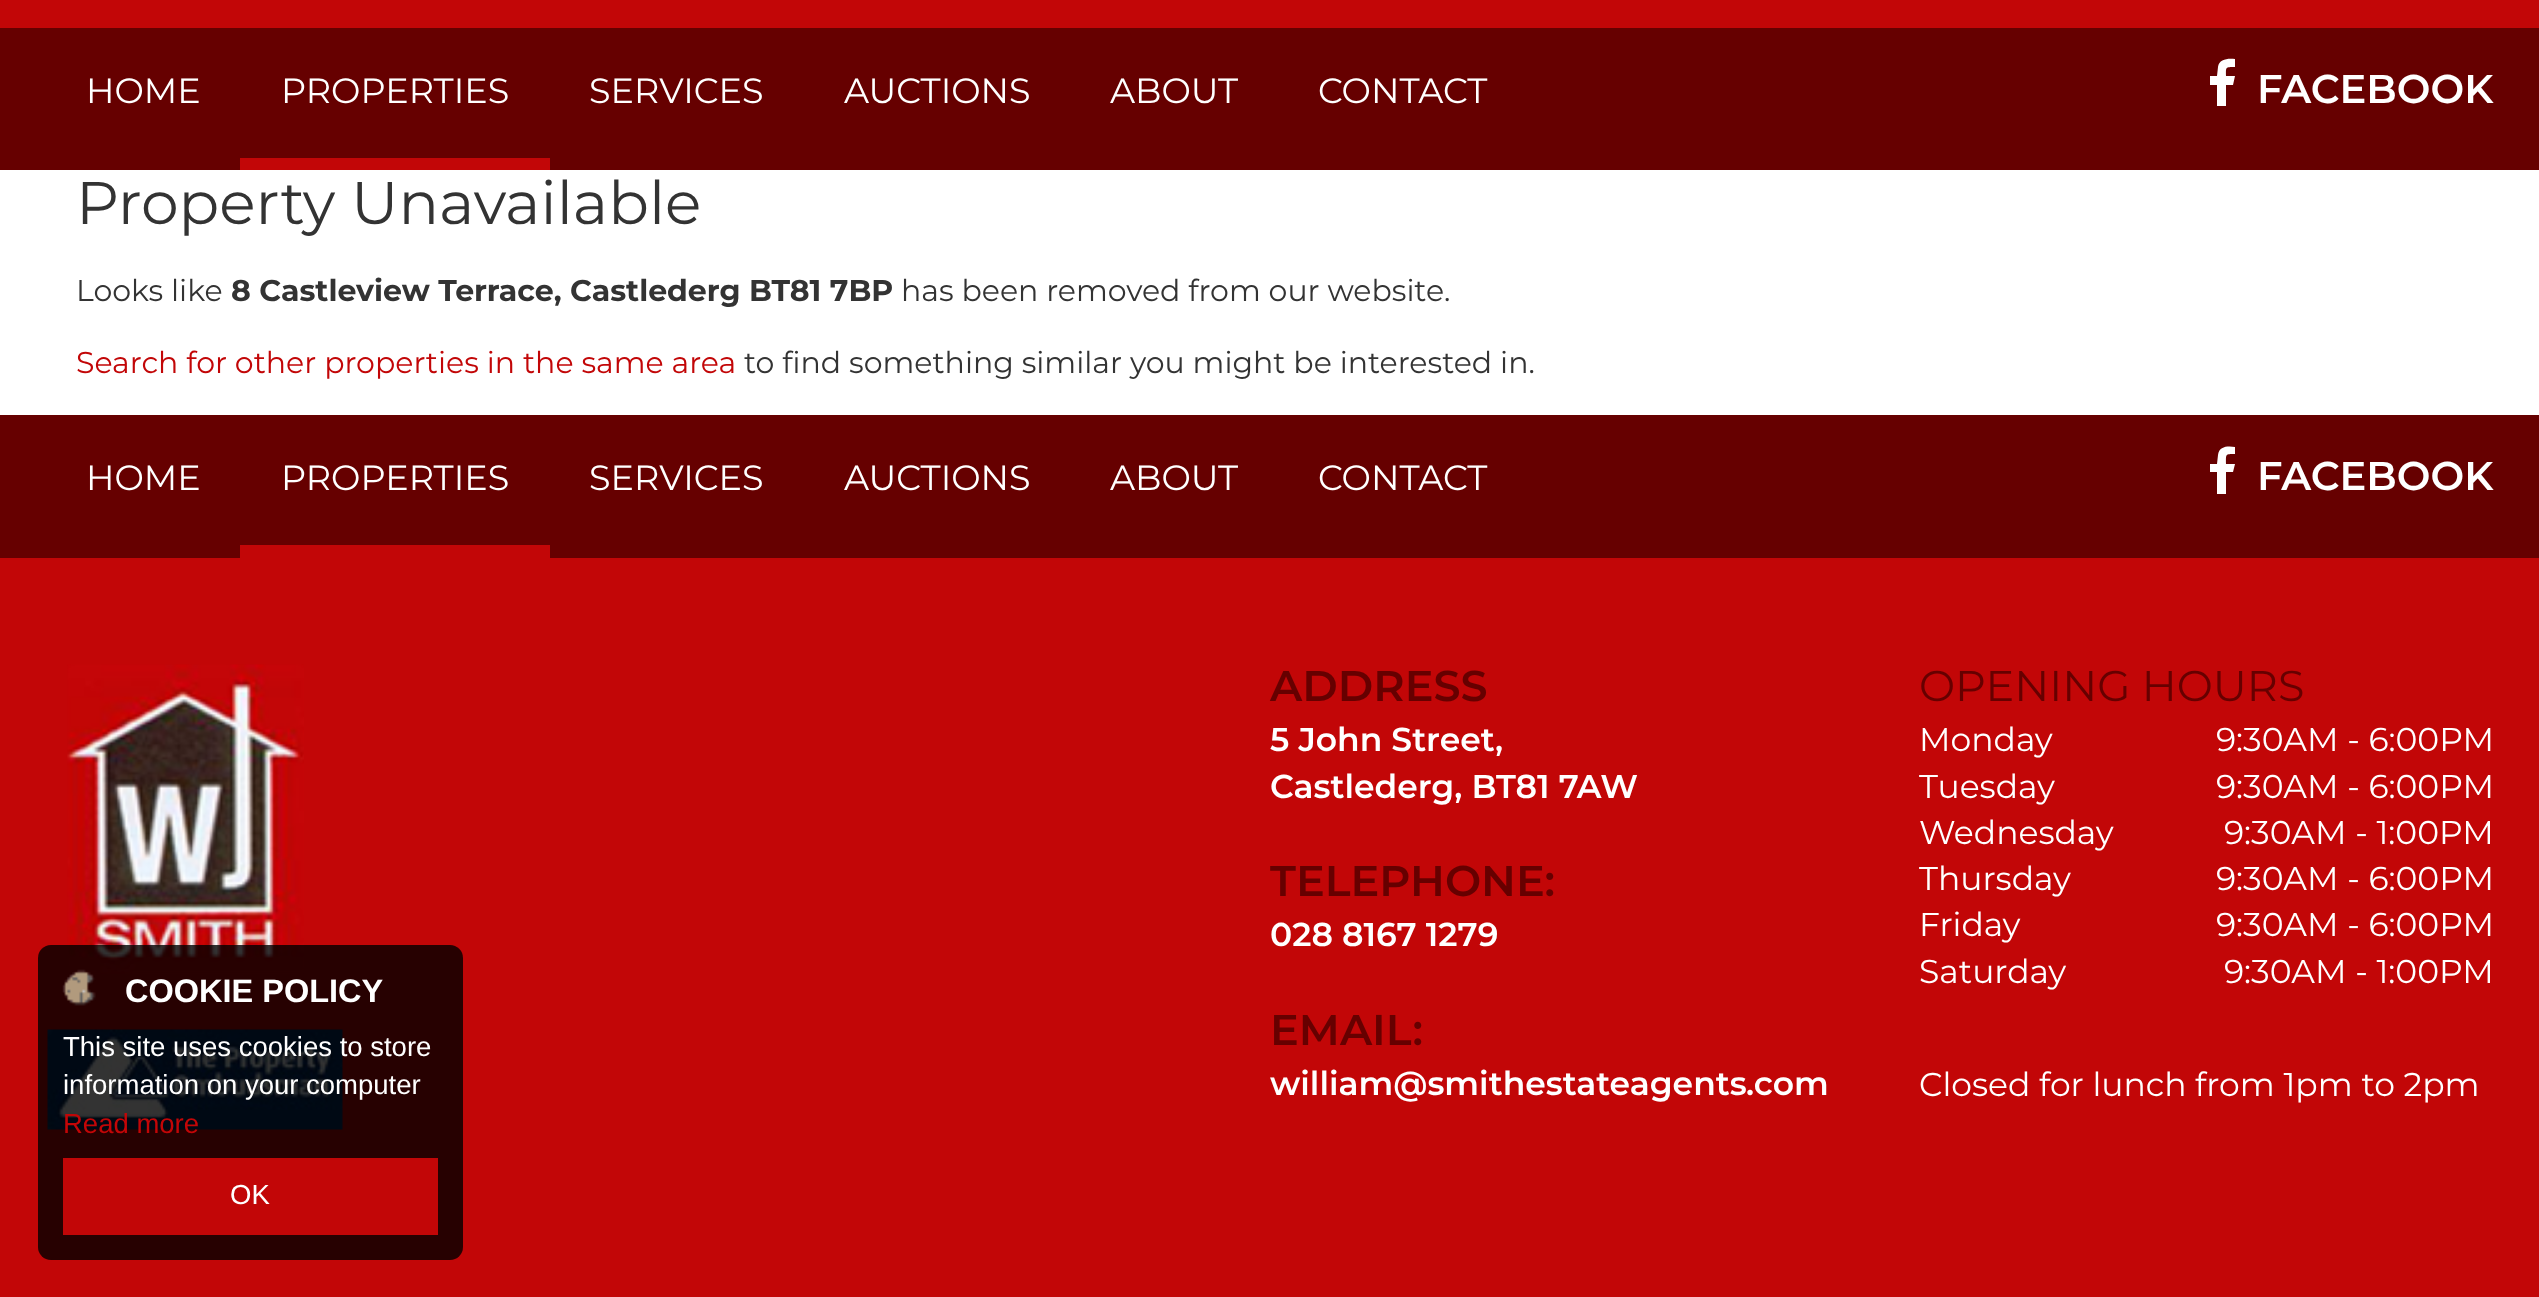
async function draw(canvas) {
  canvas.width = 2539;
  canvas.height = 1297;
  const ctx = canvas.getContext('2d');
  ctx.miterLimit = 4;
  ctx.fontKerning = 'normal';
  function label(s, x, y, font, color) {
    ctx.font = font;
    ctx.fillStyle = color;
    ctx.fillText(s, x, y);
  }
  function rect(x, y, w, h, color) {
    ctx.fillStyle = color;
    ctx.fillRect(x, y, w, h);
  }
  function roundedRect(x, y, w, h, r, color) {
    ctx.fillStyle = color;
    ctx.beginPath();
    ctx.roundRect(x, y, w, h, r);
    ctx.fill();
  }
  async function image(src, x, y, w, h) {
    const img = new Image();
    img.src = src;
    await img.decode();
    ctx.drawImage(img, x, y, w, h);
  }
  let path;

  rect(0, 0, 2539, 1297, '#fff');
  rect(0, 0, 2539, 28, '#c20607');
  rect(0, 28, 2539, 142, '#600');
  label('HOME', 86, 103, '35px Montserrat', '#fff');
  rect(240, 158, 310, 12, '#c20607');
  label('PROPERTIES', 281, 103, '35px Montserrat', '#fff');
  label('SERVICES', 589, 103, '35px Montserrat', '#fff');
  label('AUCTIONS', 844, 103, '35px Montserrat', '#fff');
  label('ABOUT', 1110, 103, '35px Montserrat', '#fff');
  label('CONTACT', 1318, 103, '35px Montserrat', '#fff');
  path = new Path2D('M2235 59V67C2225 67 2226 67 2226 76H2235L2233 85H2226V106H2217V85H2210V76H2217L2218 67C2219 59 2228 58 2235 59Z');
  ctx.fill(path);
  label('FACEBOOK', 2257, 103, '600 40px Montserrat', '#fff');
  label('Property Unavailable', 76, 224, '60px Montserrat', '#333');
  label('Looks like', 76, 301, '30px Montserrat', '#333');
  label('8 Castleview Terrace, Castlederg BT81 7BP', 231, 301, 'bold 30px Montserrat', '#333');
  label('has been removed from our website.', 901, 301, '30px Montserrat', '#333');
  label('Search for other properties in the same area', 76, 373, '30px Montserrat', '#c20607');
  label('to find something similar you might be interested in.', 744, 373, '30px Montserrat', '#333');
  rect(0, 415, 2539, 143, '#600');
  label('HOME', 86, 490, '35px Montserrat', '#fff');
  rect(240, 545, 310, 13, '#c20607');
  label('PROPERTIES', 281, 490, '35px Montserrat', '#fff');
  label('SERVICES', 589, 490, '35px Montserrat', '#fff');
  label('AUCTIONS', 844, 490, '35px Montserrat', '#fff');
  label('ABOUT', 1110, 490, '35px Montserrat', '#fff');
  label('CONTACT', 1318, 490, '35px Montserrat', '#fff');
  path = new Path2D('M2235 447V454C2225 454 2226 454 2226 464H2235L2233 472H2226V494H2217V472H2210V464H2217L2218 455C2219 446 2228 446 2235 447Z');
  ctx.fill(path);
  label('FACEBOOK', 2257, 490, '600 40px Montserrat', '#fff');
  rect(0, 558, 2539, 739, '#c20607');
  await image('assets/img2.png', 67, 664, 237, 310);
  await image('assets/img3.png', 47, 1029, 296, 101);
  roundedRect(38, 945, 425, 315, 13, '#000000cc');
  await image('assets/img1.png', 62, 969, 34, 37);
  label('COOKIE POLICY', 125, 1002, 'bold 32.5px Liberation Sans', '#fff');
  label('This site uses cookies to store', 63, 1056, '27.5px Liberation Sans', '#fff');
  label('information on your computer', 63, 1094, '27.5px Liberation Sans', '#fff');
  label('Read more', 63, 1133, '27.5px Liberation Sans', '#c20607');
  rect(63, 1158, 375, 77, '#c20607');
  label('OK', 230, 1204, '27.5px Liberation Sans', '#fff');
  label('ADDRESS', 1270, 701, '600 43px Montserrat', '#600');
  label('5 John Street,', 1270, 751, '600 33px Montserrat', '#fff');
  label('Castlederg, BT81 7AW', 1270, 798, '600 33px Montserrat', '#fff');
  label('TELEPHONE:', 1270, 896, '600 43px Montserrat', '#600');
  label('028 8167 1279', 1270, 946, '600 33px Montserrat', '#fff');
  label('EMAIL:', 1270, 1045, '600 43px Montserrat', '#600');
  label('william@smithestateagents', 1270, 1095, '600 33px Montserrat', '#fff');
  label('.com', 1746, 1095, '600 33px Montserrat', '#fff');
  label('OPENING HOURS', 1919, 701, '43px Montserrat', '#600');
  label('Monday', 1919, 751, '33px Montserrat', '#fff');
  label('9:30AM - 6:00PM', 2216, 751, '33px Montserrat', '#fff');
  label('Tuesday', 1919, 798, '33px Montserrat', '#fff');
  label('9:30AM - 6:00PM', 2216, 798, '33px Montserrat', '#fff');
  label('Wednesday', 1919, 844, '33px Montserrat', '#fff');
  label('9:30AM - 1:00PM', 2224, 844, '33px Montserrat', '#fff');
  label('Thursday', 1919, 890, '33px Montserrat', '#fff');
  label('9:30AM - 6:00PM', 2216, 890, '33px Montserrat', '#fff');
  label('Friday', 1919, 936, '33px Montserrat', '#fff');
  label('9:30AM - 6:00PM', 2216, 936, '33px Montserrat', '#fff');
  label('Saturday', 1919, 983, '33px Montserrat', '#fff');
  label('9:30AM - 1:00PM', 2224, 983, '33px Montserrat', '#fff');
  label('Closed for lunch from 1pm to 2pm', 1919, 1096, '33px Montserrat', '#fff');
}

draw(document.querySelector('canvas'));
